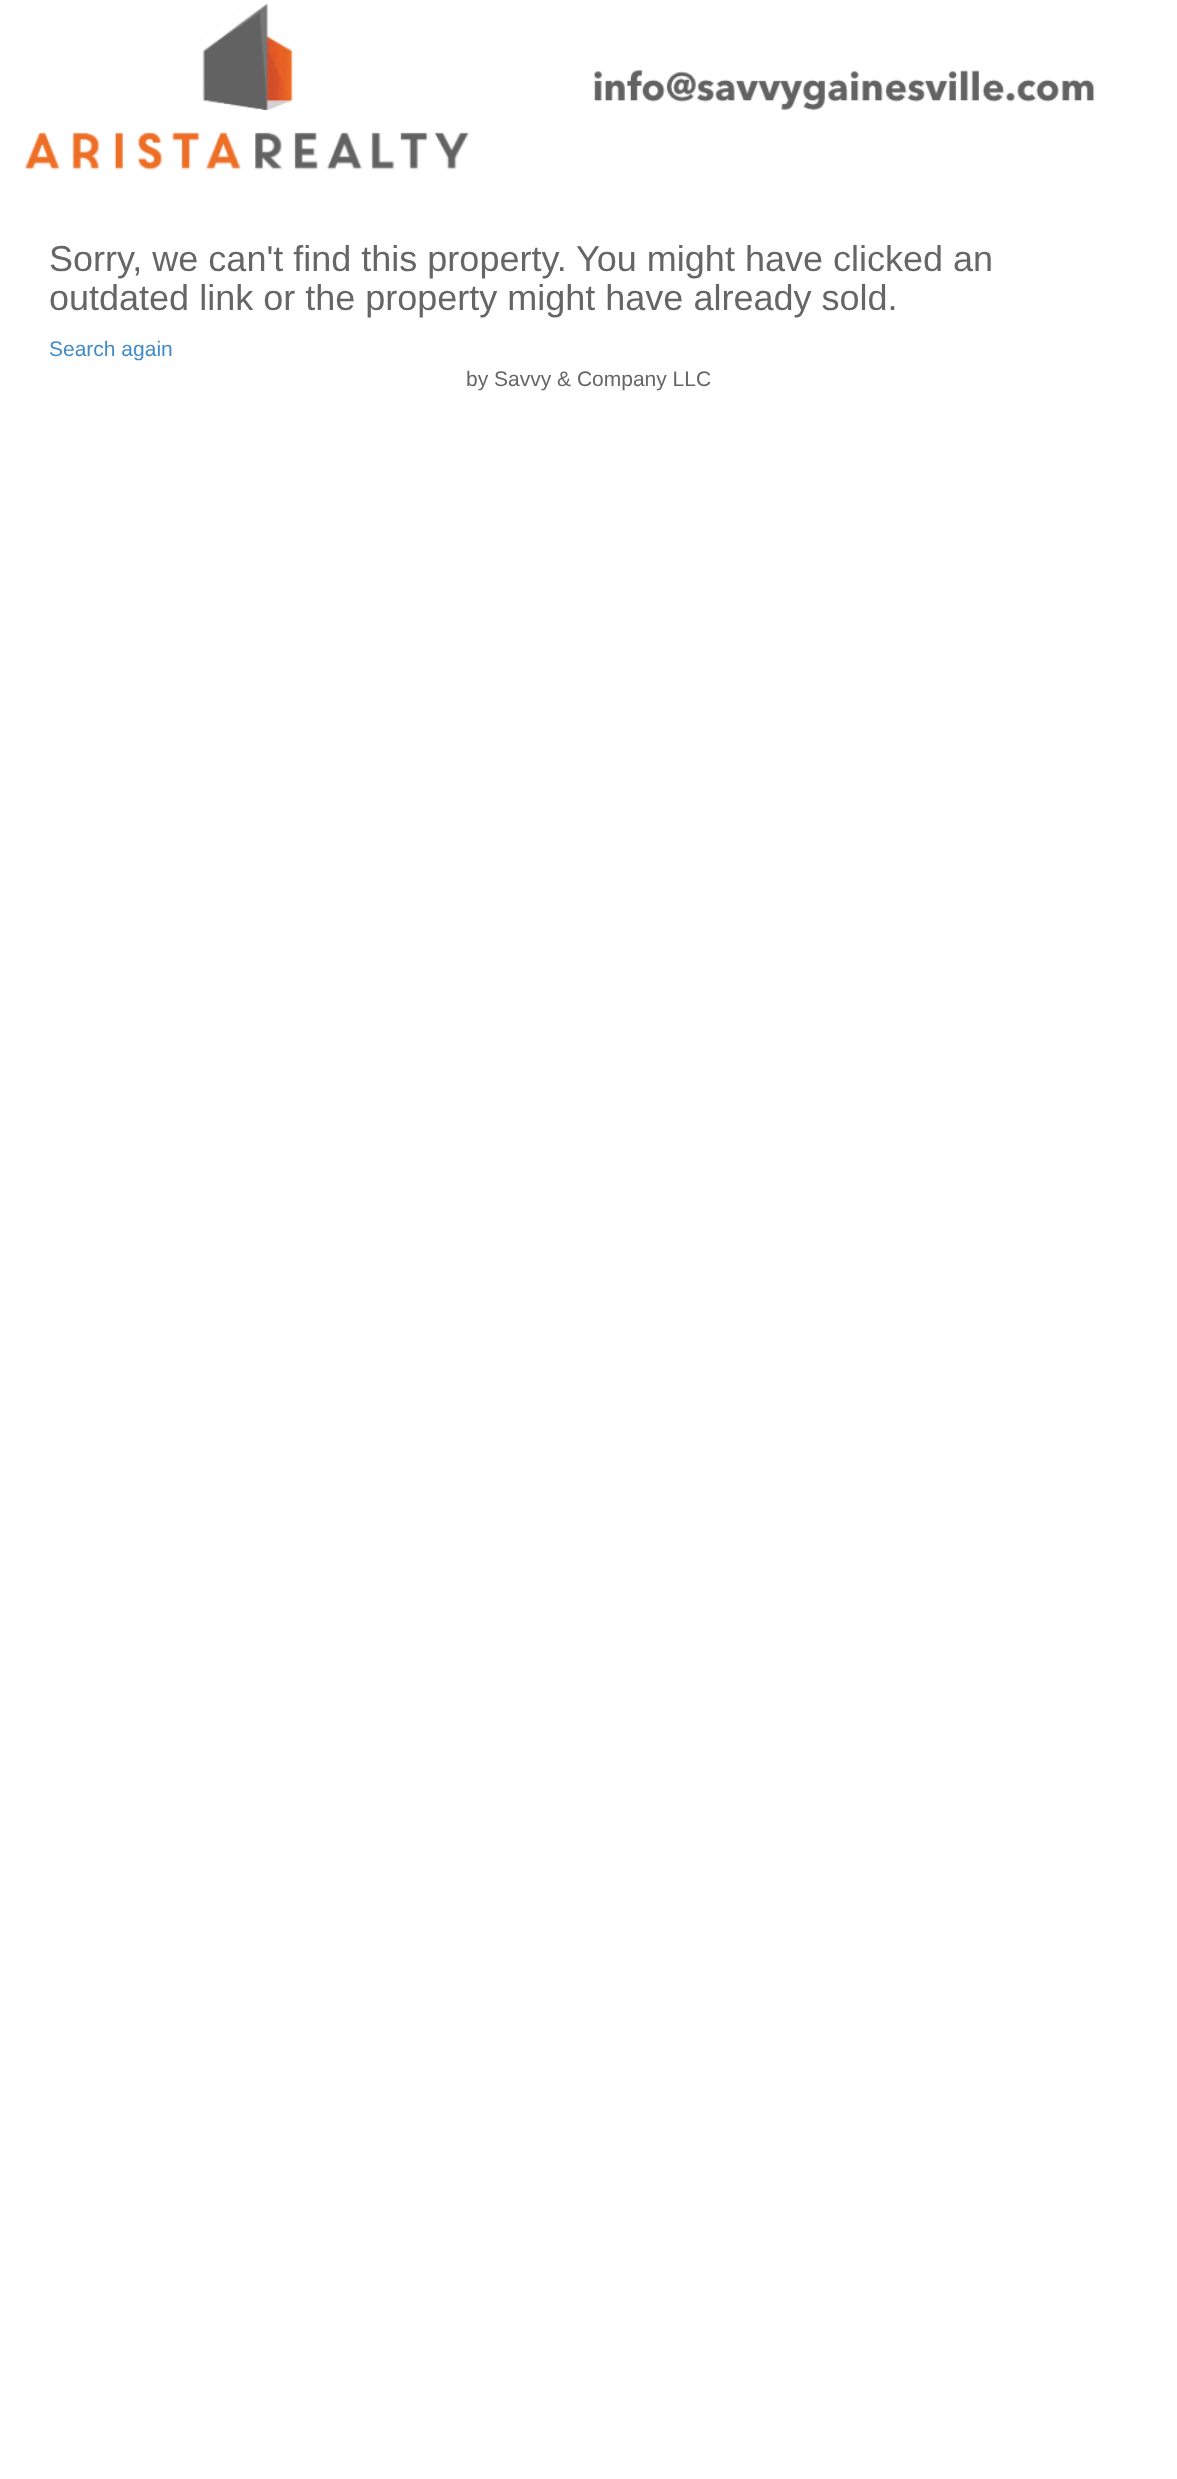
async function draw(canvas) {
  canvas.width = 1177;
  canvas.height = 2479;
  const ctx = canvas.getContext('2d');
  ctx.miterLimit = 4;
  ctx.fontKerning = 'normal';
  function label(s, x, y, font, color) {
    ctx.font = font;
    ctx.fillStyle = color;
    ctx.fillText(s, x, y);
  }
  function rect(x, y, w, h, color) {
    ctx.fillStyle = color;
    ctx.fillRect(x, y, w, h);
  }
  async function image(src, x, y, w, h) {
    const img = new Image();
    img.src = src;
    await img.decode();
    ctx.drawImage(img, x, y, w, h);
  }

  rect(0, 0, 1177, 2479, '#fff');
  await image('assets/img1.png', 25, 3, 1070, 168);
  label('Sorry, we can\'t find this property. You might have clicked an', 49, 271, '36px Liberation Sans', '#666');
  label('outdated link or the property might have already sold.', 49, 310, '36px Liberation Sans', '#666');
  label('Search again', 49, 356, '21px Liberation Sans', '#428bca');
  label('by Savvy & Company LLC', 466, 386, '21px Liberation Sans', '#666');
}

draw(document.querySelector('canvas'));
